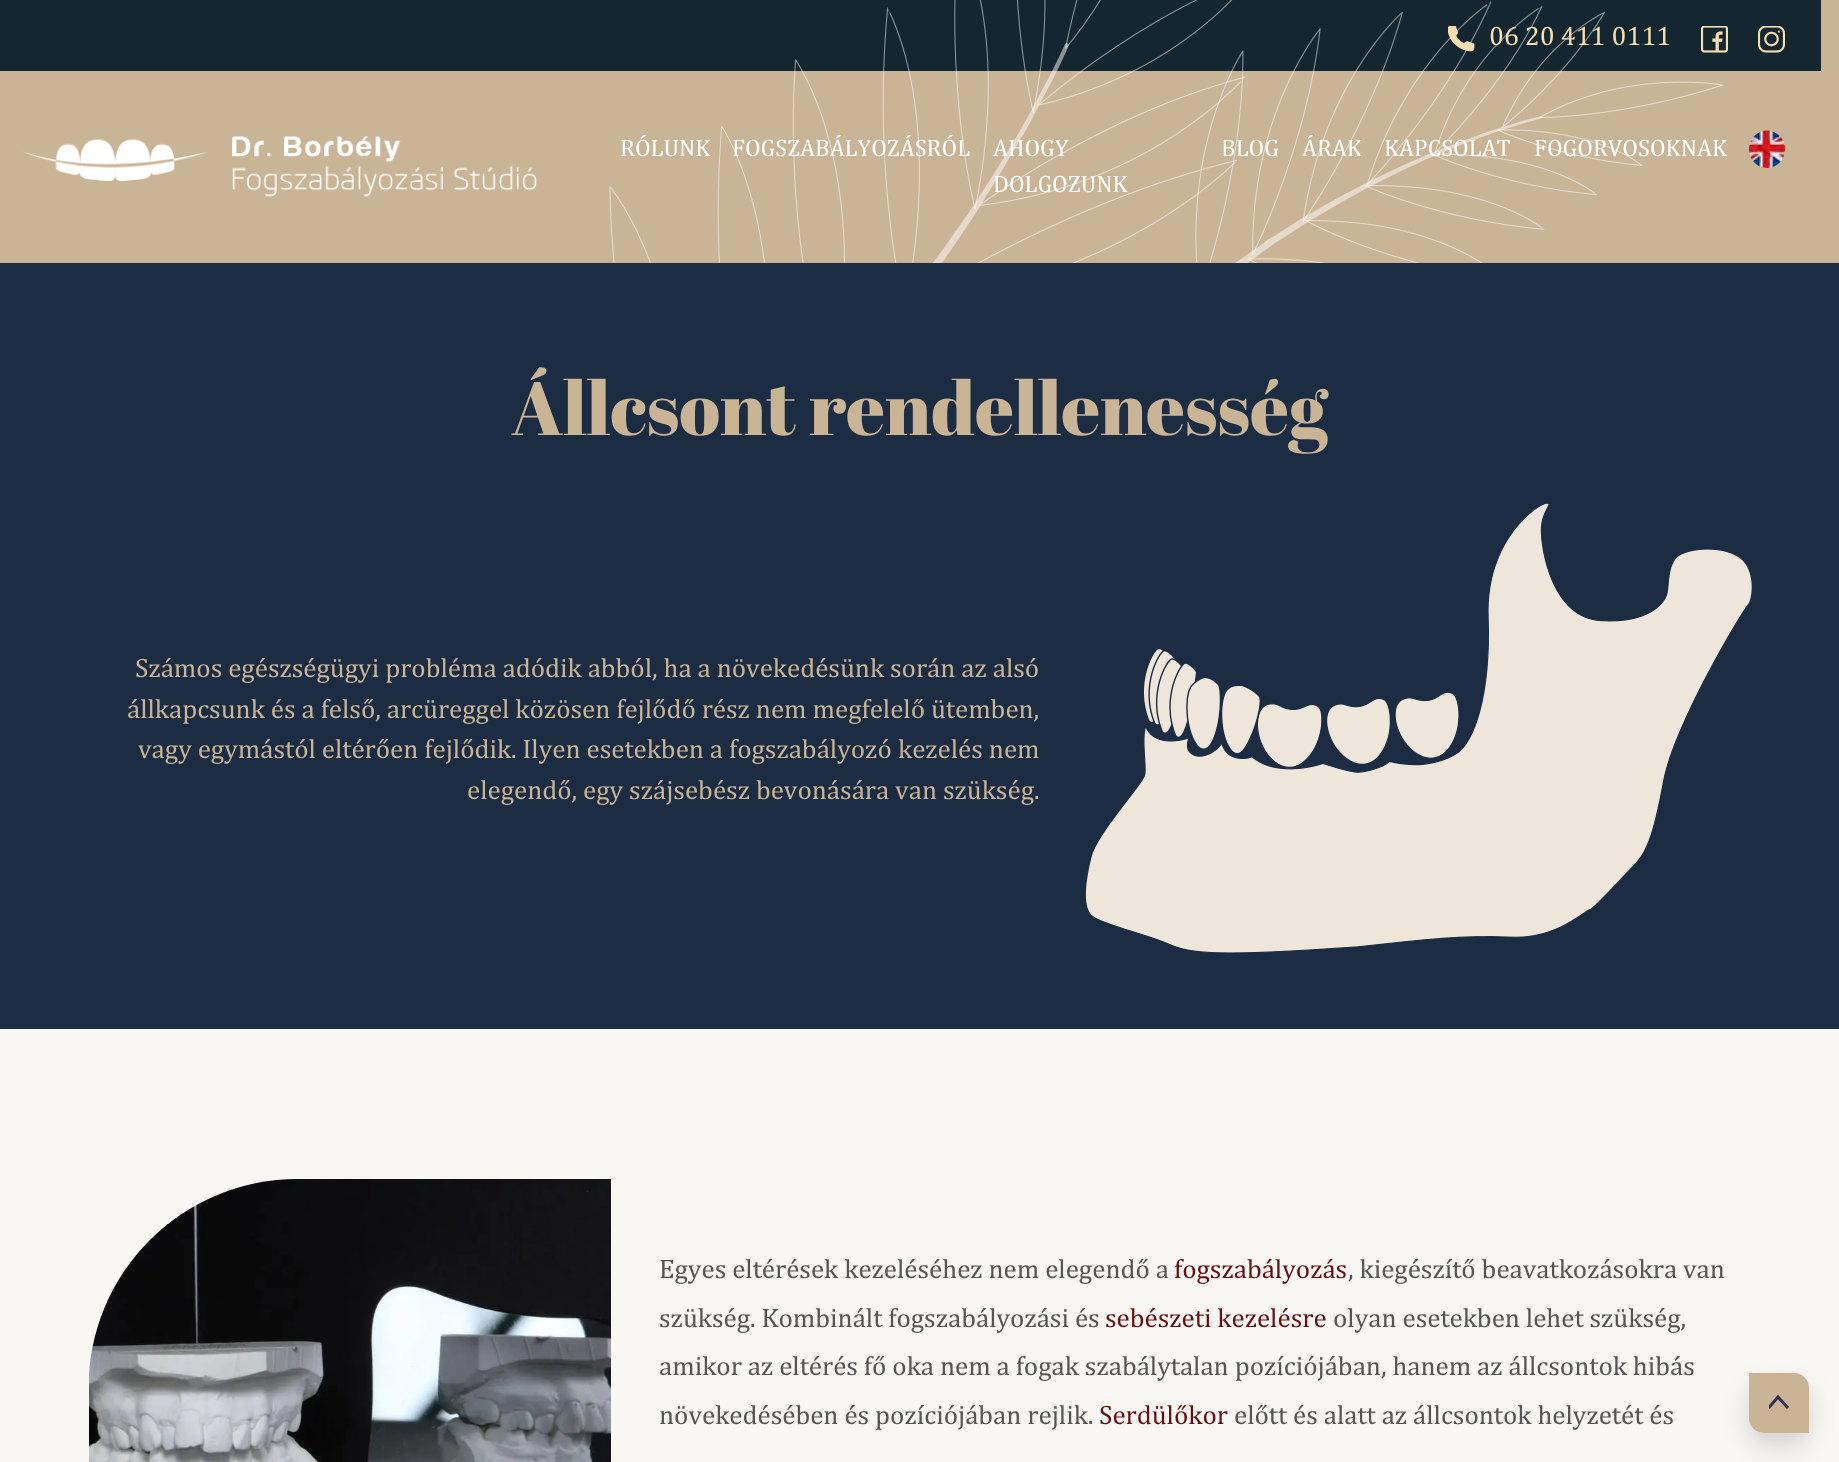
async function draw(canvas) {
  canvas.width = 1839;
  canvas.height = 1462;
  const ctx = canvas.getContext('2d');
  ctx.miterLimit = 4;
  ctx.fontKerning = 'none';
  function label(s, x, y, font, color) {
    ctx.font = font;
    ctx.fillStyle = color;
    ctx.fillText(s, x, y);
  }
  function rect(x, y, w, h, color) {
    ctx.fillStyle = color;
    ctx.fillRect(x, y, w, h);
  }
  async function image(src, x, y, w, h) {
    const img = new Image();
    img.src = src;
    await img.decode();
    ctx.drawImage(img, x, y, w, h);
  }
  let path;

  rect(0, 0, 1839, 1462, '#1b2c43');
  rect(0, 71, 1839, 192, '#c9b496');
  rect(0, 0, 1821, 71, '#142730');
  await image('assets/img1.png', 609, 0, 637, 263);
  await image('assets/img2.png', 1195, 1, 528, 262);
  await image('assets/img3.png', 1448, 26, 27, 26);
  label('06 20 411 0111', 1489, 45, '27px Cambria', '#f8ddaf');
  await image('assets/img4.png', 1701, 26, 27, 27);
  await image('assets/img5.png', 1758, 26, 27, 27);
  await image('assets/img6.png', 22, 136, 515, 61);
  label('RÓLUNK', 620, 156, '24px Cambria', '#fff');
  label('FOGSZABÁLYOZÁSRÓL', 732, 156, '24px Cambria', '#fff');
  label('AHOGY', 993, 156, '24px Cambria', '#fff');
  label('DOLGOZUNK', 993, 192, '24px Cambria', '#fff');
  label('BLOG', 1221, 156, '24px Cambria', '#fff');
  label('ÁRAK', 1302, 156, '24px Cambria', '#fff');
  label('KAPCSOLAT', 1384, 156, '24px Cambria', '#fff');
  label('FOGORVOSOKNAK', 1534, 156, '24px Cambria', '#fff');
  await image('assets/img7.png', 1748, 130, 38, 38);
  rect(1821, 0, 18, 71, '#c9b496');
  label('Állcsont rendellenesség', 511, 435, '75px Abril Fatface', '#c9b496');
  label('Számos egészségügyi probléma adódik abból, ha a növekedésünk során az alsó', 135, 677, '27px Cambria', '#c9b496');
  label('állkapcsunk és a felső, arcüreggel közösen fejlődő rész nem megfelelő ütemben,', 127, 718, '27px Cambria', '#c9b496');
  label('vagy egymástól eltérően fejlődik. Ilyen esetekben a fogszabályozó', 138, 758, '27px Cambria', '#c9b496');
  label('kezelés nem', 898, 758, '27px Cambria', '#c9b496');
  label('elegendő, egy szájsebész bevonására van szükség.', 467, 799, '27px Cambria', '#c9b496');
  await image('assets/img8.png', 1085, 503, 667, 450);
  rect(0, 1029, 1839, 433, '#f9f7f4');
  await image('assets/img9.png', 89, 1179, 522, 283);
  label('Egyes eltérések kezeléséhez nem elegendő a', 659, 1278, '27px Cambria', '#555');
  label('fogszabályozás', 1174, 1278, '27px Cambria', '#690e0e');
  label(', kiegészítő beavatkozásokra van', 1348, 1278, '27px Cambria', '#555');
  label('szükség. Kombinált fogszabályozási és', 659, 1327, '27px Cambria', '#555');
  label('sebészeti kezelésre', 1105, 1327, '27px Cambria', '#690e0e');
  label('olyan esetekben lehet szükség,', 1333, 1327, '27px Cambria', '#555');
  label('amikor az eltérés fő oka nem a fogak szabálytalan pozíciójában, hanem az állcsontok hibás', 659, 1375, '27px Cambria', '#555');
  label('növekedésében és pozíciójában rejlik.', 659, 1424, '27px Cambria', '#555');
  label('Serdülőkor', 1099, 1424, '27px Cambria', '#690e0e');
  label('előtt és alatt az állcsontok helyzetét és', 1234, 1424, '27px Cambria', '#555');
  ctx.fillStyle = '#00000026';
  ctx.filter = 'blur(12px)';
  ctx.beginPath();
  ctx.roundRect(1749, 1385, 60, 60, 15);
  ctx.fill();
  ctx.filter = 'none';
  ctx.fillStyle = '#c9b496';
  ctx.beginPath();
  ctx.roundRect(1749, 1373, 60, 60, [0, 15, 0, 15]);
  ctx.fill();
  ctx.save();
  ctx.beginPath();
  ctx.rect(1769, 1395, 22, 15);
  ctx.clip();
  path = new Path2D('M1768.5 1408L1778 1397L1788 1408');
  ctx.strokeStyle = '#313251';
  ctx.lineWidth = 3;
  ctx.stroke(path);
  ctx.restore();
}

draw(document.querySelector('canvas'));
